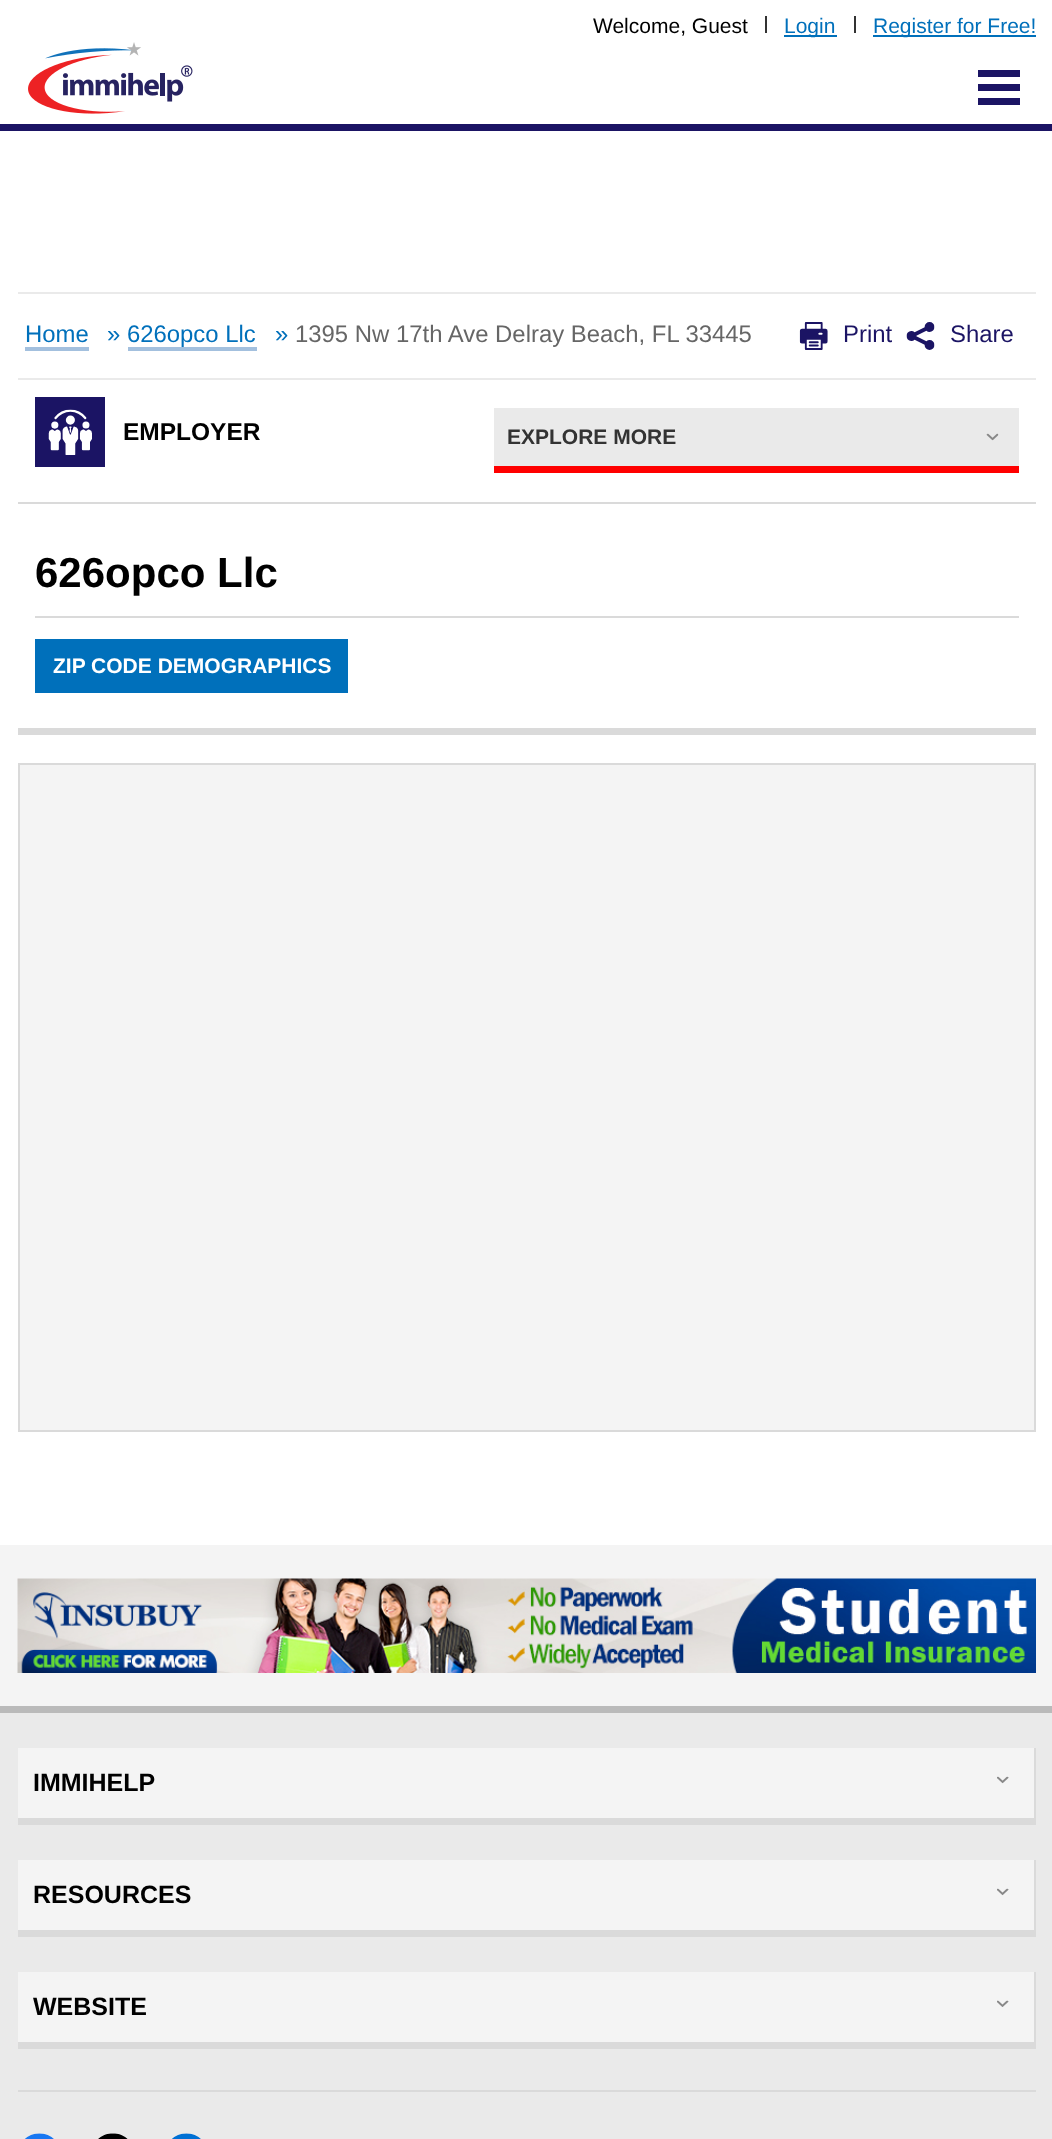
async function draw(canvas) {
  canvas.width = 1052;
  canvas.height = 2139;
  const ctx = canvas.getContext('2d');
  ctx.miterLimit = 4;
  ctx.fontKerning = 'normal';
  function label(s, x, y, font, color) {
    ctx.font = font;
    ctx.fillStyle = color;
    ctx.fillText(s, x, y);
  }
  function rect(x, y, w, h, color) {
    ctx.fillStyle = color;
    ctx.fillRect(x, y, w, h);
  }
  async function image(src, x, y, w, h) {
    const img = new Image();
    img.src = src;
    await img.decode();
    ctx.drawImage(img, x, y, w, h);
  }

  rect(0, 0, 1052, 2139, '#fff');
  rect(0, 124, 1052, 7, '#1b1464');
  label('Welcome, Guest', 593, 33, '21px Liberation Sans', '#000');
  rect(765, 16, 2, 17, '#333');
  rect(784, 35, 53, 2, '#0070bb');
  label('Login', 784, 33, '21px Liberation Sans', '#0070bb');
  rect(854, 16, 2, 17, '#333');
  rect(873, 35, 163, 2, '#0070bb');
  label('Register for Free!', 873, 33, '21px Liberation Sans', '#0070bb');
  await image('assets/img1.png', 28, 42, 165, 72);
  rect(978, 70, 42, 7, '#1b1464');
  rect(978, 84, 42, 7, '#1b1464');
  rect(978, 98, 42, 7, '#1b1464');
  rect(18, 292, 1018, 2, '#eaeaea');
  rect(18, 378, 1018, 2, '#eaeaea');
  label('Home', 25, 342, '23.9px Liberation Sans', '#0070bb');
  rect(25, 347, 64, 4, '#a3c0de');
  label('» 626opco Llc', 107, 342, '23.9px Liberation Sans', '#0070bb');
  rect(128, 347, 129, 4, '#a3c0de');
  label('»', 275, 342, '23.9px Liberation Sans', '#0070bb');
  label('1395 Nw 17th Ave Delray Beach, FL 33445', 295, 342, '23.9px Liberation Sans', '#666');
  await image('assets/img2.png', 799, 322, 29, 28);
  label('Print', 843, 342, '23.9px Liberation Sans', '#1b1464');
  await image('assets/img3.png', 906, 322, 29, 28);
  label('Share', 950, 342, '23.9px Liberation Sans', '#1b1464');
  rect(18, 502, 1018, 2, '#dadada');
  rect(35, 397, 70, 70, '#1b1464');
  await image('assets/img4.png', 48, 409, 44, 46);
  label('EMPLOYER', 123, 440, 'bold 24.5px Liberation Sans', '#000');
  rect(494, 408, 525, 58, '#eaeaea');
  rect(494, 466, 525, 7, '#f00');
  label('EXPLORE MORE', 507, 444, 'bold 21px Liberation Sans', '#333');
  await image('assets/img5.png', 986, 433, 13, 8);
  rect(18, 728, 1018, 7, '#dadada');
  label('626opco Llc', 35, 587, 'bold 42px Liberation Sans', '#000');
  rect(35, 616, 984, 2, '#dadada');
  rect(35, 639, 313, 54, '#0070bb');
  label('ZIP CODE DEMOGRAPHICS', 53, 673, 'bold 21px Liberation Sans', '#fff');
  ctx.fillStyle = '#f4f4f4';
  ctx.beginPath();
  ctx.rect(19, 764, 1016, 667);
  ctx.fill();
  ctx.strokeStyle = '#dadada';
  ctx.lineWidth = 2;
  ctx.stroke();
  rect(0, 1545, 1052, 161, '#f4f4f4');
  await image('assets/img6.png', 17, 1578, 1019, 95);
  rect(0, 1713, 1052, 426, '#eaeaea');
  rect(0, 1706, 1052, 7, '#bababa');
  rect(18, 2090, 1018, 2, '#dadada');
  rect(1034, 1748, 2, 77, '#dadada');
  rect(18, 1748, 1016, 70, '#f4f4f4');
  rect(18, 1818, 1016, 7, '#dadada');
  label('IMMIHELP', 33, 1791, 'bold 25px Liberation Sans', '#000');
  await image('assets/img7.png', 997, 1776, 12, 8);
  rect(1034, 1860, 2, 77, '#dadada');
  rect(18, 1860, 1016, 70, '#f4f4f4');
  rect(18, 1930, 1016, 7, '#dadada');
  label('RESOURCES', 33, 1903, 'bold 25px Liberation Sans', '#000');
  await image('assets/img8.png', 997, 1888, 12, 8);
  rect(1034, 1972, 2, 77, '#dadada');
  rect(18, 1972, 1016, 70, '#f4f4f4');
  rect(18, 2042, 1016, 7, '#dadada');
  label('WEBSITE', 33, 2015, 'bold 25px Liberation Sans', '#000');
  await image('assets/img9.png', 997, 2000, 12, 7);
  await image('assets/img10.png', 25, 2133, 29, 6);
  await image('assets/img11.png', 98, 2133, 30, 6);
  await image('assets/img12.png', 172, 2133, 29, 6);
}

draw(document.querySelector('canvas'));
